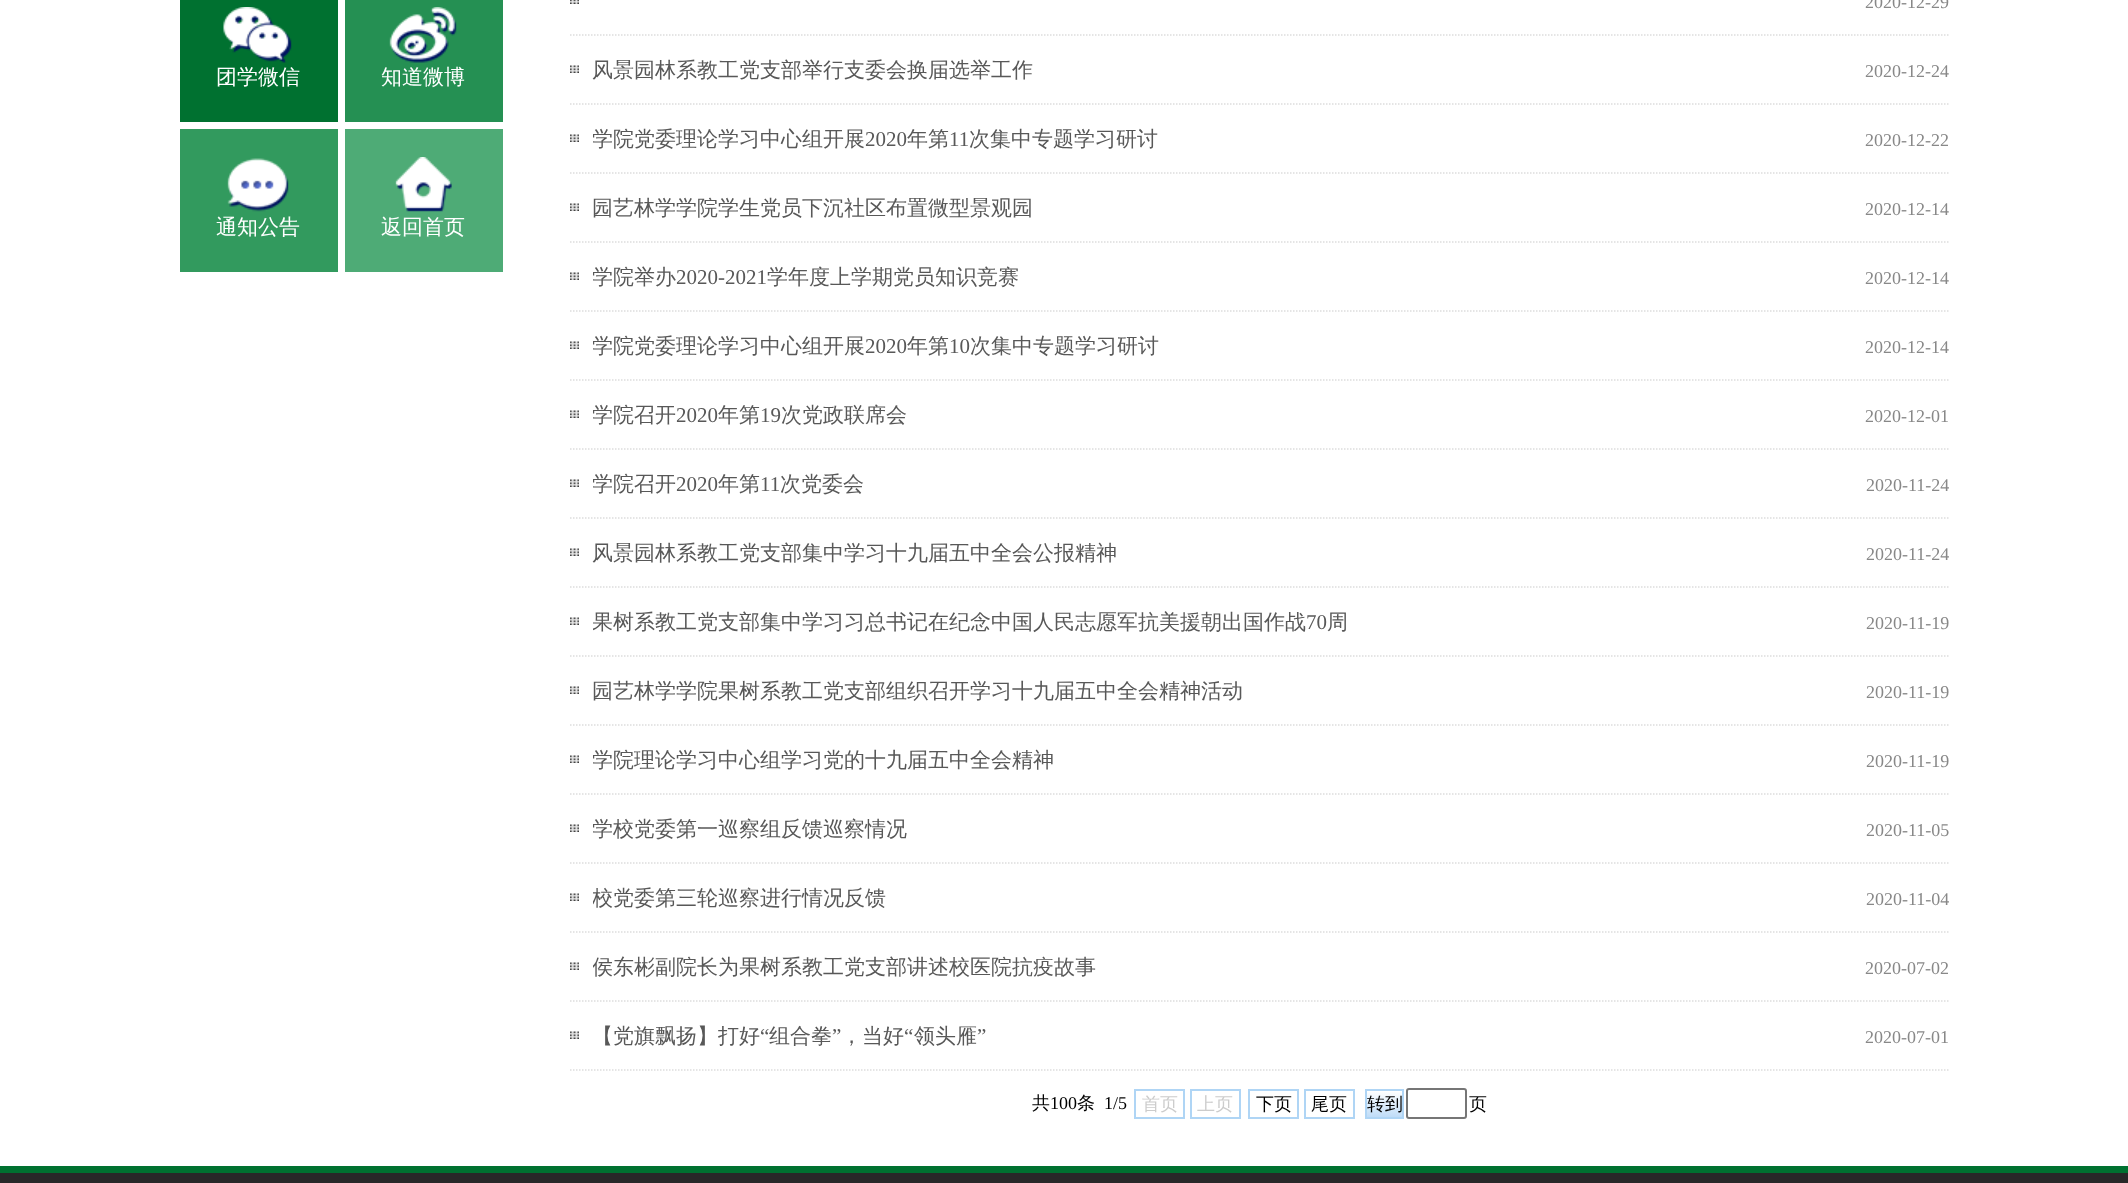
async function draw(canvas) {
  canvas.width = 2128;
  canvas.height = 1183;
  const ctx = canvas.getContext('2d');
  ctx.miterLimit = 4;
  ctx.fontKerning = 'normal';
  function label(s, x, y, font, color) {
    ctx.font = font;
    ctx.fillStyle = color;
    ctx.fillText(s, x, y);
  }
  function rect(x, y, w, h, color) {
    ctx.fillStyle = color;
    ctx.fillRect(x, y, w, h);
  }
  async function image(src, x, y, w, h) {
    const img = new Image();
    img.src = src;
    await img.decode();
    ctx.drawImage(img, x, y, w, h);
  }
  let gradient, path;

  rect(0, 0, 2128, 1183, '#fff');
  rect(180, 0, 158, 122, '#007130');
  await image('assets/img1.png', 223, 7, 69, 56);
  label('团学微信', 216, 84, '500 21px WenQuanYi Zen Hei', '#fff');
  rect(345, 0, 158, 122, '#259053');
  await image('assets/img2.png', 389, 7, 68, 56);
  label('知道微博', 381, 84, '500 21px WenQuanYi Zen Hei', '#fff');
  rect(180, 129, 158, 143, '#329a5e');
  await image('assets/img3.png', 227, 158, 62, 54);
  label('通知公告', 216, 234, '500 21px WenQuanYi Zen Hei', '#fff');
  rect(345, 129, 158, 143, '#4eab76');
  await image('assets/img4.png', 395, 157, 57, 55);
  label('返回首页', 381, 234, '500 21px WenQuanYi Zen Hei', '#fff');
  await image('assets/img5.png', 570, 0, 9, 4);
  path = new Path2D('M570 35H1950');
  ctx.strokeStyle = '#ddd';
  ctx.lineWidth = 1.5;
  ctx.setLineDash([1.5, 1.5]);
  ctx.stroke(path);
  label('2020-12-29', 1865, 8, '18px Liberation Serif', '#888');
  await image('assets/img6.png', 570, 65, 9, 8);
  path = new Path2D('M570 104H1950');
  ctx.stroke(path);
  label('风景园林系教工党支部举行支委会换届选举工作', 592, 77, '500 21px WenQuanYi Zen Hei', '#585858');
  label('2020-12-24', 1865, 77, '18px Liberation Serif', '#888');
  await image('assets/img6.png', 570, 134, 9, 8);
  path = new Path2D('M570 173H1950');
  ctx.stroke(path);
  ctx.save();
  ctx.beginPath();
  ctx.rect(593, 105, 1230, 69);
  ctx.clip();
  label('学院党委理论学习中心组开展', 592, 146, '500 21px WenQuanYi Zen Hei', '#585858');
  ctx.restore();
  label('2020', 865, 146, '21px Liberation Serif', '#585858');
  label('年第', 907, 146, '500 21px WenQuanYi Zen Hei', '#585858');
  label('11', 949, 146, '21px Liberation Serif', '#585858');
  label('次集中专题学习研讨', 969, 146, '500 21px WenQuanYi Zen Hei', '#585858');
  label('2020-12-22', 1865, 146, '18px Liberation Serif', '#888');
  await image('assets/img6.png', 570, 203, 9, 8);
  path = new Path2D('M570 242H1950');
  ctx.stroke(path);
  label('园艺林学学院学生党员下沉社区布置微型景观园', 592, 215, '500 21px WenQuanYi Zen Hei', '#585858');
  label('2020-12-14', 1865, 215, '18px Liberation Serif', '#888');
  await image('assets/img6.png', 570, 272, 9, 8);
  path = new Path2D('M570 311H1950');
  ctx.stroke(path);
  ctx.save();
  ctx.beginPath();
  ctx.rect(593, 243, 1230, 69);
  ctx.clip();
  label('学院举办', 592, 284, '500 21px WenQuanYi Zen Hei', '#585858');
  ctx.restore();
  label('2020-2021', 676, 284, '21px Liberation Serif', '#585858');
  label('学年度上学期党员知识竞赛', 767, 284, '500 21px WenQuanYi Zen Hei', '#585858');
  label('2020-12-14', 1865, 284, '18px Liberation Serif', '#888');
  await image('assets/img6.png', 570, 341, 9, 8);
  path = new Path2D('M570 380H1950');
  ctx.stroke(path);
  ctx.save();
  ctx.beginPath();
  ctx.rect(593, 312, 1230, 69);
  ctx.clip();
  label('学院党委理论学习中心组开展', 592, 353, '500 21px WenQuanYi Zen Hei', '#585858');
  ctx.restore();
  label('2020', 865, 353, '21px Liberation Serif', '#585858');
  label('年第', 907, 353, '500 21px WenQuanYi Zen Hei', '#585858');
  label('10', 949, 353, '21px Liberation Serif', '#585858');
  label('次集中专题学习研讨', 970, 353, '500 21px WenQuanYi Zen Hei', '#585858');
  label('2020-12-14', 1865, 353, '18px Liberation Serif', '#888');
  await image('assets/img6.png', 570, 410, 9, 8);
  path = new Path2D('M570 449H1950');
  ctx.stroke(path);
  ctx.save();
  ctx.beginPath();
  ctx.rect(593, 381, 1230, 69);
  ctx.clip();
  label('学院召开', 592, 422, '500 21px WenQuanYi Zen Hei', '#585858');
  ctx.restore();
  label('2020', 676, 422, '21px Liberation Serif', '#585858');
  label('年第', 718, 422, '500 21px WenQuanYi Zen Hei', '#585858');
  label('19', 760, 422, '21px Liberation Serif', '#585858');
  label('次党政联席会', 781, 422, '500 21px WenQuanYi Zen Hei', '#585858');
  label('2020-12-01', 1865, 422, '18px Liberation Serif', '#888');
  await image('assets/img6.png', 570, 479, 9, 8);
  path = new Path2D('M570 518H1950');
  ctx.stroke(path);
  ctx.save();
  ctx.beginPath();
  ctx.rect(593, 450, 1230, 69);
  ctx.clip();
  label('学院召开', 592, 491, '500 21px WenQuanYi Zen Hei', '#585858');
  ctx.restore();
  label('2020', 676, 491, '21px Liberation Serif', '#585858');
  label('年第', 718, 491, '500 21px WenQuanYi Zen Hei', '#585858');
  label('11', 760, 491, '21px Liberation Serif', '#585858');
  label('次党委会', 780, 491, '500 21px WenQuanYi Zen Hei', '#585858');
  label('2020-11-24', 1866, 491, '18px Liberation Serif', '#888');
  await image('assets/img6.png', 570, 548, 9, 8);
  path = new Path2D('M570 587H1950');
  ctx.stroke(path);
  label('风景园林系教工党支部集中学习十九届五中全会公报精神', 592, 560, '500 21px WenQuanYi Zen Hei', '#585858');
  label('2020-11-24', 1866, 560, '18px Liberation Serif', '#888');
  await image('assets/img6.png', 570, 617, 9, 8);
  path = new Path2D('M570 656H1950');
  ctx.stroke(path);
  ctx.save();
  ctx.beginPath();
  ctx.rect(593, 588, 1230, 69);
  ctx.clip();
  label('果树系教工党支部集中学习习总书记在纪念中国人民志愿军抗美援朝出国作战', 592, 629, '500 21px WenQuanYi Zen Hei', '#585858');
  ctx.restore();
  label('70', 1306, 629, '21px Liberation Serif', '#585858');
  label('周', 1327, 629, '500 21px WenQuanYi Zen Hei', '#585858');
  label('2020-11-19', 1866, 629, '18px Liberation Serif', '#888');
  await image('assets/img6.png', 570, 686, 9, 8);
  path = new Path2D('M570 725H1950');
  ctx.stroke(path);
  label('园艺林学学院果树系教工党支部组织召开学习十九届五中全会精神活动', 592, 698, '500 21px WenQuanYi Zen Hei', '#585858');
  label('2020-11-19', 1866, 698, '18px Liberation Serif', '#888');
  await image('assets/img6.png', 570, 755, 9, 8);
  path = new Path2D('M570 794H1950');
  ctx.stroke(path);
  ctx.save();
  ctx.beginPath();
  ctx.rect(593, 726, 1230, 69);
  ctx.clip();
  label('学院理论学习中心组学习党的十九届五中全会精神', 592, 767, '500 21px WenQuanYi Zen Hei', '#585858');
  ctx.restore();
  label('2020-11-19', 1866, 767, '18px Liberation Serif', '#888');
  await image('assets/img6.png', 570, 824, 9, 8);
  path = new Path2D('M570 863H1950');
  ctx.stroke(path);
  ctx.save();
  ctx.beginPath();
  ctx.rect(593, 795, 1230, 69);
  ctx.clip();
  label('学校党委第一巡察组反馈巡察情况', 592, 836, '500 21px WenQuanYi Zen Hei', '#585858');
  ctx.restore();
  label('2020-11-05', 1866, 836, '18px Liberation Serif', '#888');
  await image('assets/img6.png', 570, 893, 9, 8);
  path = new Path2D('M570 932H1950');
  ctx.stroke(path);
  ctx.save();
  ctx.beginPath();
  ctx.rect(593, 864, 1230, 69);
  ctx.clip();
  label('校党委第三轮巡察进行情况反馈', 592, 905, '500 21px WenQuanYi Zen Hei', '#585858');
  ctx.restore();
  label('2020-11-04', 1866, 905, '18px Liberation Serif', '#888');
  await image('assets/img6.png', 570, 962, 9, 8);
  path = new Path2D('M570 1001H1950');
  ctx.stroke(path);
  ctx.save();
  ctx.beginPath();
  ctx.rect(593, 933, 1230, 69);
  ctx.clip();
  label('侯东彬副院长为果树系教工党支部讲述校医院抗疫故事', 592, 974, '500 21px WenQuanYi Zen Hei', '#585858');
  ctx.restore();
  label('2020-07-02', 1865, 974, '18px Liberation Serif', '#888');
  await image('assets/img6.png', 570, 1031, 9, 8);
  path = new Path2D('M570 1070H1950');
  ctx.stroke(path);
  label('【党旗飘扬】打好', 592, 1043, '500 21px WenQuanYi Zen Hei', '#585858');
  label('“', 760, 1043, '21px Liberation Serif', '#585858');
  label('组合拳', 769, 1043, '500 21px WenQuanYi Zen Hei', '#585858');
  label('”', 832, 1043, '21px Liberation Serif', '#585858');
  label('，当好', 841, 1043, '500 21px WenQuanYi Zen Hei', '#585858');
  label('“', 904, 1043, '21px Liberation Serif', '#585858');
  label('领头雁', 914, 1043, '500 21px WenQuanYi Zen Hei', '#585858');
  label('”', 977, 1043, '21px Liberation Serif', '#585858');
  label('2020-07-01', 1865, 1043, '18px Liberation Serif', '#888');
  label('共', 1032, 1109, '500 18px WenQuanYi Zen Hei', '#000');
  label('100', 1050, 1109, '18px Liberation Serif', '#000');
  label('条', 1077, 1109, '500 18px WenQuanYi Zen Hei', '#000');
  label('1/5', 1104, 1109, '18px Liberation Serif', '#000');
  ctx.strokeStyle = '#afd5f5';
  ctx.lineWidth = 2;
  ctx.setLineDash([]);
  ctx.strokeRect(1135, 1090, 49, 28);
  label('首页', 1142, 1110, '500 18px WenQuanYi Zen Hei', '#ccc');
  ctx.strokeRect(1191, 1090, 49, 28);
  label('上页', 1197, 1110, '500 18px WenQuanYi Zen Hei', '#ccc');
  ctx.strokeRect(1249, 1090, 49, 28);
  label('下页', 1256, 1110, '500 18px WenQuanYi Zen Hei', '#000');
  ctx.strokeRect(1305, 1090, 49, 28);
  label('尾页', 1311, 1110, '500 18px WenQuanYi Zen Hei', '#000');
  gradient = ctx.createLinearGradient(1367, 1091, 1367, 1118);
  gradient.addColorStop(0, '#fff');
  gradient.addColorStop(1, '#bddbf7');
  ctx.fillStyle = gradient;
  ctx.fillRect(1367, 1092, 35, 25);
  ctx.strokeRect(1366, 1090, 37, 28);
  label('转到', 1367, 1110, '500 18px WenQuanYi Zen Hei', '#000');
  ctx.beginPath();
  ctx.roundRect(1407, 1089, 59, 29, 2);
  ctx.strokeStyle = '#767676';
  ctx.stroke();
  label('页', 1469, 1110, '500 18px WenQuanYi Zen Hei', '#000');
  rect(0, 1166, 2128, 7, '#007130');
  rect(0, 1173, 2128, 10, '#282828');
}

draw(document.querySelector('canvas'));
